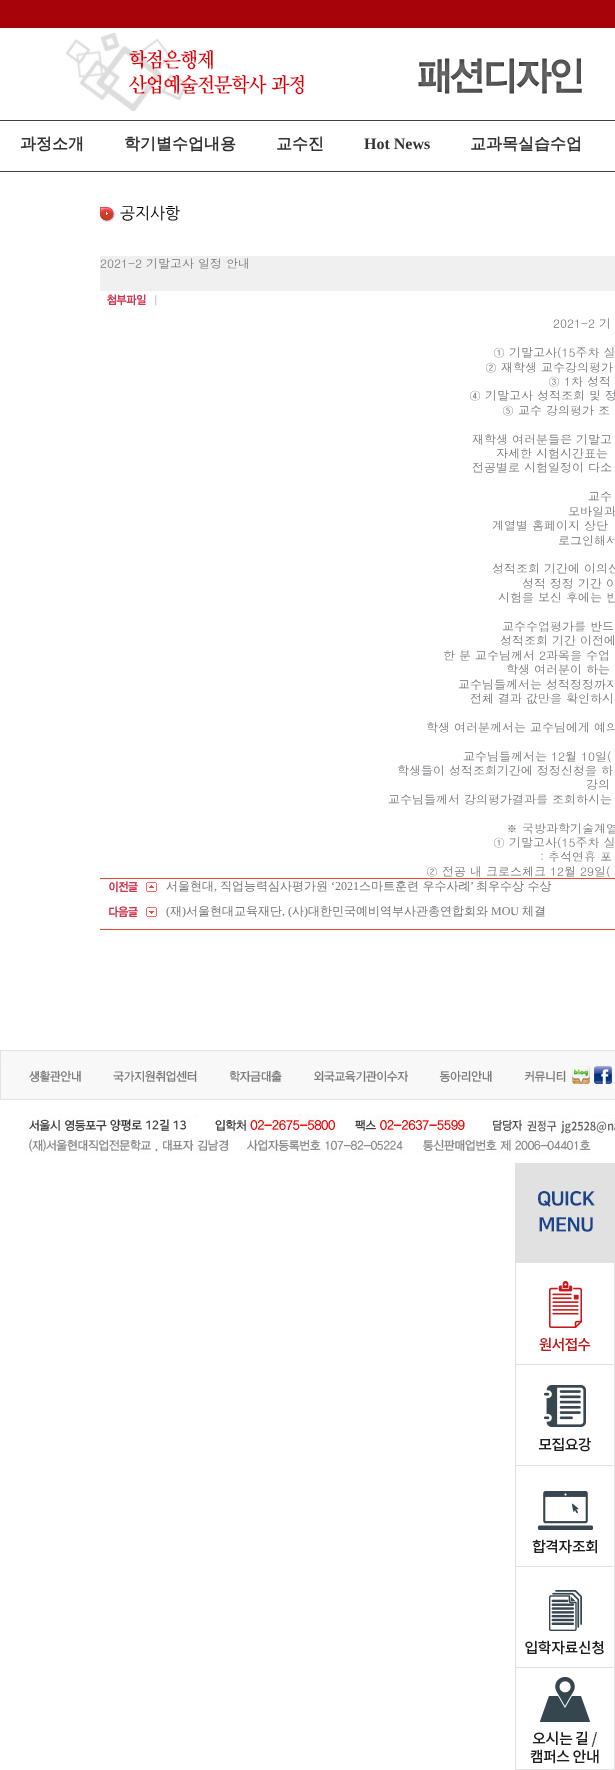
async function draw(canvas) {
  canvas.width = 615;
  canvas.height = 1770;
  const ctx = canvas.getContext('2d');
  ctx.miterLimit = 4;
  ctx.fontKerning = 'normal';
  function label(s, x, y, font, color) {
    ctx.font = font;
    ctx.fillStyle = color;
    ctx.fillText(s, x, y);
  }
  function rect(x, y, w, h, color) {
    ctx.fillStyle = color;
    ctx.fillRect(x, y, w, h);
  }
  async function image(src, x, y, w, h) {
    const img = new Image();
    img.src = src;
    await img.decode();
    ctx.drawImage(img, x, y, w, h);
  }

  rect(0, 0, 615, 1770, '#fff');
  rect(0, 0, 615, 28, '#a7030a');
  await image('assets/img1.png', 66, 33, 238, 78);
  await image('assets/img2.png', 418, 58, 164, 36);
  rect(0, 120, 615, 1, '#3a3e47');
  rect(0, 171, 615, 1, '#3a3e47');
  label('과정소개', 20, 149, 'bold 16px WenQuanYi Zen Hei', '#333');
  label('학기별수업내용', 124, 149, 'bold 16px WenQuanYi Zen Hei', '#333');
  label('교수진', 276, 149, 'bold 16px WenQuanYi Zen Hei', '#333');
  label('Hot News', 364, 149, 'bold 16px Liberation Serif', '#333');
  label('교과목실습수업', 470, 149, 'bold 16px WenQuanYi Zen Hei', '#333');
  await image('assets/img3.png', 100, 207, 15, 15);
  label('공지사항', 120, 219, '16px NanumGothic', '#000');
  rect(100, 256, 515, 35, '#f0f0f0');
  label('2021-2 기말고사 일정 안내', 100, 268, '12px Dotum', '#74767a');
  await image('assets/img4.png', 107, 294, 50, 12);
  label('2021-2 기', 553, 328, '12px Dotum', '#74767a');
  label('① 기말고사(15주차 실', 493, 357, '12px Dotum', '#74767a');
  label('② 재학생 교수강의평가', 485, 372, '12px Dotum', '#74767a');
  label('③ 1차 성적', 548, 386, '12px Dotum', '#74767a');
  label('④ 기말고사 성적조회 및 정', 469, 400, '12px Dotum', '#74767a');
  label('⑤ 교수 강의평가 조', 502, 415, '12px Dotum', '#74767a');
  label('재학생 여러분들은 기말고', 472, 444, '12px Dotum', '#74767a');
  label('자세한 시험시간표는', 496, 458, '12px Dotum', '#74767a');
  label('전공별로 시험일정이 다소', 472, 472, '12px Dotum', '#74767a');
  label('교수', 588, 501, '12px Dotum', '#74767a');
  label('모바일과', 568, 516, '12px Dotum', '#74767a');
  label('계열별 홈페이지 상단', 492, 530, '12px Dotum', '#74767a');
  label('로그인해서', 558, 545, '12px Dotum', '#74767a');
  label('성적조회 기간에 이의신', 492, 573, '12px Dotum', '#74767a');
  label('성적 정정 기간 이', 522, 588, '12px Dotum', '#74767a');
  label('시험을 보신 후에는 반', 498, 602, '12px Dotum', '#74767a');
  label('교수수업평가를 반드', 502, 631, '12px Dotum', '#74767a');
  label('성적조회 기간 이전에', 500, 645, '12px Dotum', '#74767a');
  label('한 분 교수님께서 2과목을 수업', 443, 660, '12px Dotum', '#74767a');
  label('학생 여러분이 하는', 506, 674, '12px Dotum', '#74767a');
  label('교수님들께서는 성적정정까지', 458, 689, '12px Dotum', '#74767a');
  label('전체 결과 값만을 확인하시', 470, 703, '12px Dotum', '#74767a');
  label('학생 여러분께서는 교수님에게 예의', 426, 732, '12px Dotum', '#74767a');
  label('교수님들께서는 12월 10일(', 463, 761, '12px Dotum', '#74767a');
  label('학생들이 성적조회기간에 정정신청을 하', 397, 775, '12px Dotum', '#74767a');
  label('강의', 586, 789, '12px Dotum', '#74767a');
  label('교수님들께서 강의평가결과를 조회하시는', 388, 804, '12px Dotum', '#74767a');
  label('※ 국방과학기술계열', 506, 833, '12px Dotum', '#74767a');
  label('① 기말고사(15주차 실', 493, 847, '12px Dotum', '#74767a');
  label(': 추석연휴 포', 540, 861, '12px Dotum', '#74767a');
  label('② 전공 내 크로스체크 12월 29일(', 426, 876, '12px Dotum', '#74767a');
  rect(100, 878, 515, 1, '#ed4737');
  await image('assets/img5.png', 109, 881, 48, 12);
  label('서울현대', 166, 890, '500 12px WenQuanYi Zen Hei', '#74767a');
  label('직업능력심사평가원', 220, 890, '500 12px WenQuanYi Zen Hei', '#74767a');
  label('‘2021', 331, 890, '12px Liberation Serif', '#74767a');
  label('스마트훈련 우수사례', 359, 890, '500 12px WenQuanYi Zen Hei', '#74767a');
  label('’', 470, 890, '12px Liberation Serif', '#74767a');
  label('최우수상 수상', 476, 890, '500 12px WenQuanYi Zen Hei', '#74767a');
  label(',', 214, 890, '12px Liberation Serif', '#74767a');
  await image('assets/img6.png', 109, 906, 48, 12);
  label('(', 166, 915, '12px Liberation Serif', '#74767a');
  label('재', 170, 915, '500 12px WenQuanYi Zen Hei', '#74767a');
  label(')', 182, 915, '12px Liberation Serif', '#74767a');
  label('서울현대교육재단', 186, 915, '500 12px WenQuanYi Zen Hei', '#74767a');
  label(', (', 282, 915, '12px Liberation Serif', '#74767a');
  label('사', 292, 915, '500 12px WenQuanYi Zen Hei', '#74767a');
  label(')', 304, 915, '12px Liberation Serif', '#74767a');
  label('대한민국예비역부사관총연합회와', 308, 915, '500 12px WenQuanYi Zen Hei', '#74767a');
  label('MOU', 491, 915, '12px Liberation Serif', '#74767a');
  label('체결', 522, 915, '500 12px WenQuanYi Zen Hei', '#74767a');
  rect(100, 929, 515, 1, '#ed4737');
  await image('assets/img7.png', 0, 1050, 615, 120);
  await image('assets/img8.png', 515, 1163, 100, 607);
}

draw(document.querySelector('canvas'));
